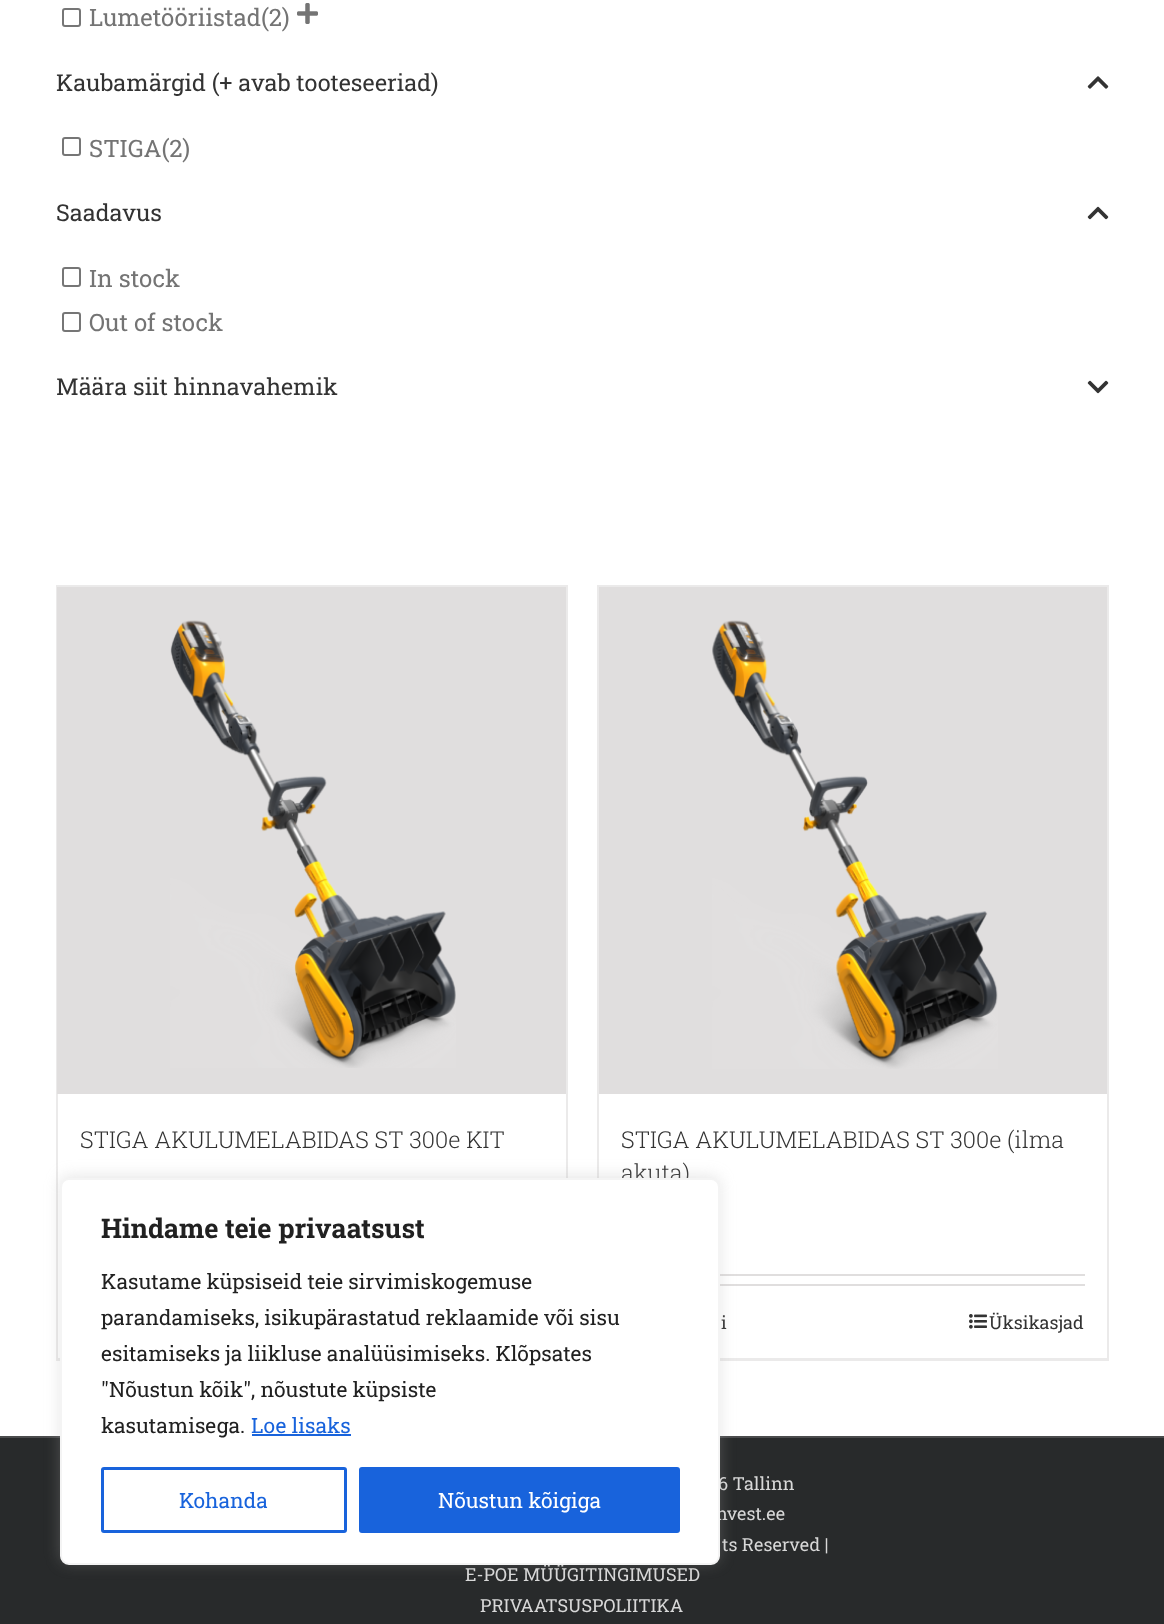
async function draw(canvas) {
  canvas.width = 1164;
  canvas.height = 1624;
  const ctx = canvas.getContext('2d');
  ctx.miterLimit = 4;
  ctx.fontKerning = 'normal';
  function label(s, x, y, font, color) {
    ctx.font = font;
    ctx.fillStyle = color;
    ctx.fillText(s, x, y);
  }
  function rect(x, y, w, h, color) {
    ctx.fillStyle = color;
    ctx.fillRect(x, y, w, h);
  }
  async function image(src, x, y, w, h) {
    const img = new Image();
    img.src = src;
    await img.decode();
    ctx.drawImage(img, x, y, w, h);
  }

  rect(0, 0, 1164, 1624, '#fff');
  ctx.beginPath();
  ctx.roundRect(63, 9, 17, 17, 2);
  ctx.strokeStyle = '#767676';
  ctx.lineWidth = 2;
  ctx.stroke();
  label('Lumetööriistad(2)', 89, 26, '24px Roboto Slab', '#747474');
  await image('assets/img1.png', 297, 3, 21, 21);
  label('Kaubamärgid (+ avab tooteseeriad)', 56, 91, '23.4px Roboto Slab', '#333');
  await image('assets/img2.png', 1087, 76, 22, 13);
  ctx.beginPath();
  ctx.roundRect(63, 138, 17, 17, 2);
  ctx.stroke();
  label('STIGA(2)', 89, 157, '24px Roboto Slab', '#747474');
  label('Saadavus', 56, 221, '23.4px Roboto Slab', '#333');
  await image('assets/img3.png', 1087, 206, 22, 14);
  ctx.beginPath();
  ctx.roundRect(63, 268, 17, 18, 2);
  ctx.stroke();
  label('In stock', 89, 287, '24px Roboto Slab', '#747474');
  ctx.beginPath();
  ctx.roundRect(63, 313, 17, 18, 2);
  ctx.stroke();
  label('Out of stock', 89, 331, '24px Roboto Slab', '#747474');
  label('Määra siit hinnavahemik', 56, 395, '23.4px Roboto Slab', '#333');
  await image('assets/img4.png', 1087, 380, 22, 14);
  rect(56, 585, 511, 2, '#ebeaea');
  rect(566, 585, 2, 593, '#ebeaea');
  rect(56, 1358, 4, 3, '#ebeaea');
  rect(56, 585, 2, 776, '#ebeaea');
  rect(57, 587, 509, 507, '#e0dede');
  await image('assets/img5.png', 170, 620, 286, 448);
  label('STIGA AKULUMELABIDAS ST 300e KIT', 80, 1148, '300 23.4px Roboto Slab', '#333');
  rect(597, 585, 512, 2, '#ebeaea');
  rect(1107, 585, 2, 776, '#ebeaea');
  rect(720, 1358, 389, 3, '#ebeaea');
  rect(597, 585, 2, 593, '#ebeaea');
  rect(599, 587, 508, 507, '#e0dede');
  await image('assets/img6.png', 712, 620, 286, 449);
  label('STIGA AKULUMELABIDAS ST 300e (ilma', 621, 1148, '300 23.4px Roboto Slab', '#333');
  label('akuta)', 621, 1181, '300 23.4px Roboto Slab', '#333');
  rect(720, 1274, 365, 2, '#e0dede');
  rect(720, 1284, 365, 2, '#e0dede');
  label('i', 721, 1329, '18px Roboto Slab', '#333');
  await image('assets/img7.png', 969, 1314, 18, 15);
  label('Üksikasjad', 989, 1329, '18px Roboto Slab', '#333');
  rect(0, 1438, 1164, 186, '#282a2b');
  rect(0, 1436, 1164, 2, '#4b4c4d');
  label('6 Tallinn', 718, 1490, '18px Roboto Slab', '#d8d8d8');
  label('nvest.ee', 716, 1520, '18px Roboto Slab', '#d8d8d8');
  label('ts Reserved |', 722, 1551, '18px Roboto Slab', '#d8d8d8');
  label('E-POE MÜÜGITINGIMUSED', 465, 1581, '18px Roboto Slab', '#d8d8d8');
  label('PRIVAATSUSPOLIITIKA', 480, 1612, '18px Roboto Slab', '#d8d8d8');
  ctx.fillStyle = '#acabab4d';
  ctx.filter = 'blur(7.5px)';
  ctx.beginPath();
  ctx.roundRect(60, 1176, 660, 387, 9);
  ctx.fill();
  ctx.filter = 'none';
  ctx.fillStyle = '#fff';
  ctx.beginPath();
  ctx.roundRect(61, 1179, 658, 385, 8);
  ctx.fill();
  ctx.strokeStyle = '#f4f4f4';
  ctx.stroke();
  label('Hindame teie privaatsust', 101, 1238, 'bold 27px Roboto Slab', '#212121');
  label('Kasutame küpsiseid teie sirvimiskogemuse', 101, 1289, '21px Roboto Slab', '#212121');
  label('parandamiseks, isikupärastatud reklaamide või sisu', 101, 1325, '21px Roboto Slab', '#212121');
  label('esitamiseks ja liikluse analüüsimiseks. Klõpsates', 101, 1361, '21px Roboto Slab', '#212121');
  label('"Nõustun kõik", nõustute küpsiste', 101, 1397, '21px Roboto Slab', '#212121');
  label('kasutamisega.', 101, 1433, '21px Roboto Slab', '#212121');
  label('Loe lisaks', 251, 1433, '21px Roboto Slab', '#1863dc');
  rect(252, 1434, 99, 2, '#1863dc');
  ctx.beginPath();
  ctx.roundRect(102.5, 1468.5, 243, 63, 1.5);
  ctx.strokeStyle = '#1863dc';
  ctx.lineWidth = 3;
  ctx.stroke();
  label('Kohanda', 179, 1508, '21px Roboto Slab', '#1863dc');
  ctx.beginPath();
  ctx.roundRect(360.5, 1468.5, 318, 63, 1.5);
  ctx.fill();
  ctx.stroke();
  label('Nõustun kõigiga', 438, 1508, '21px Roboto Slab', '#fff');
}

draw(document.querySelector('canvas'));
